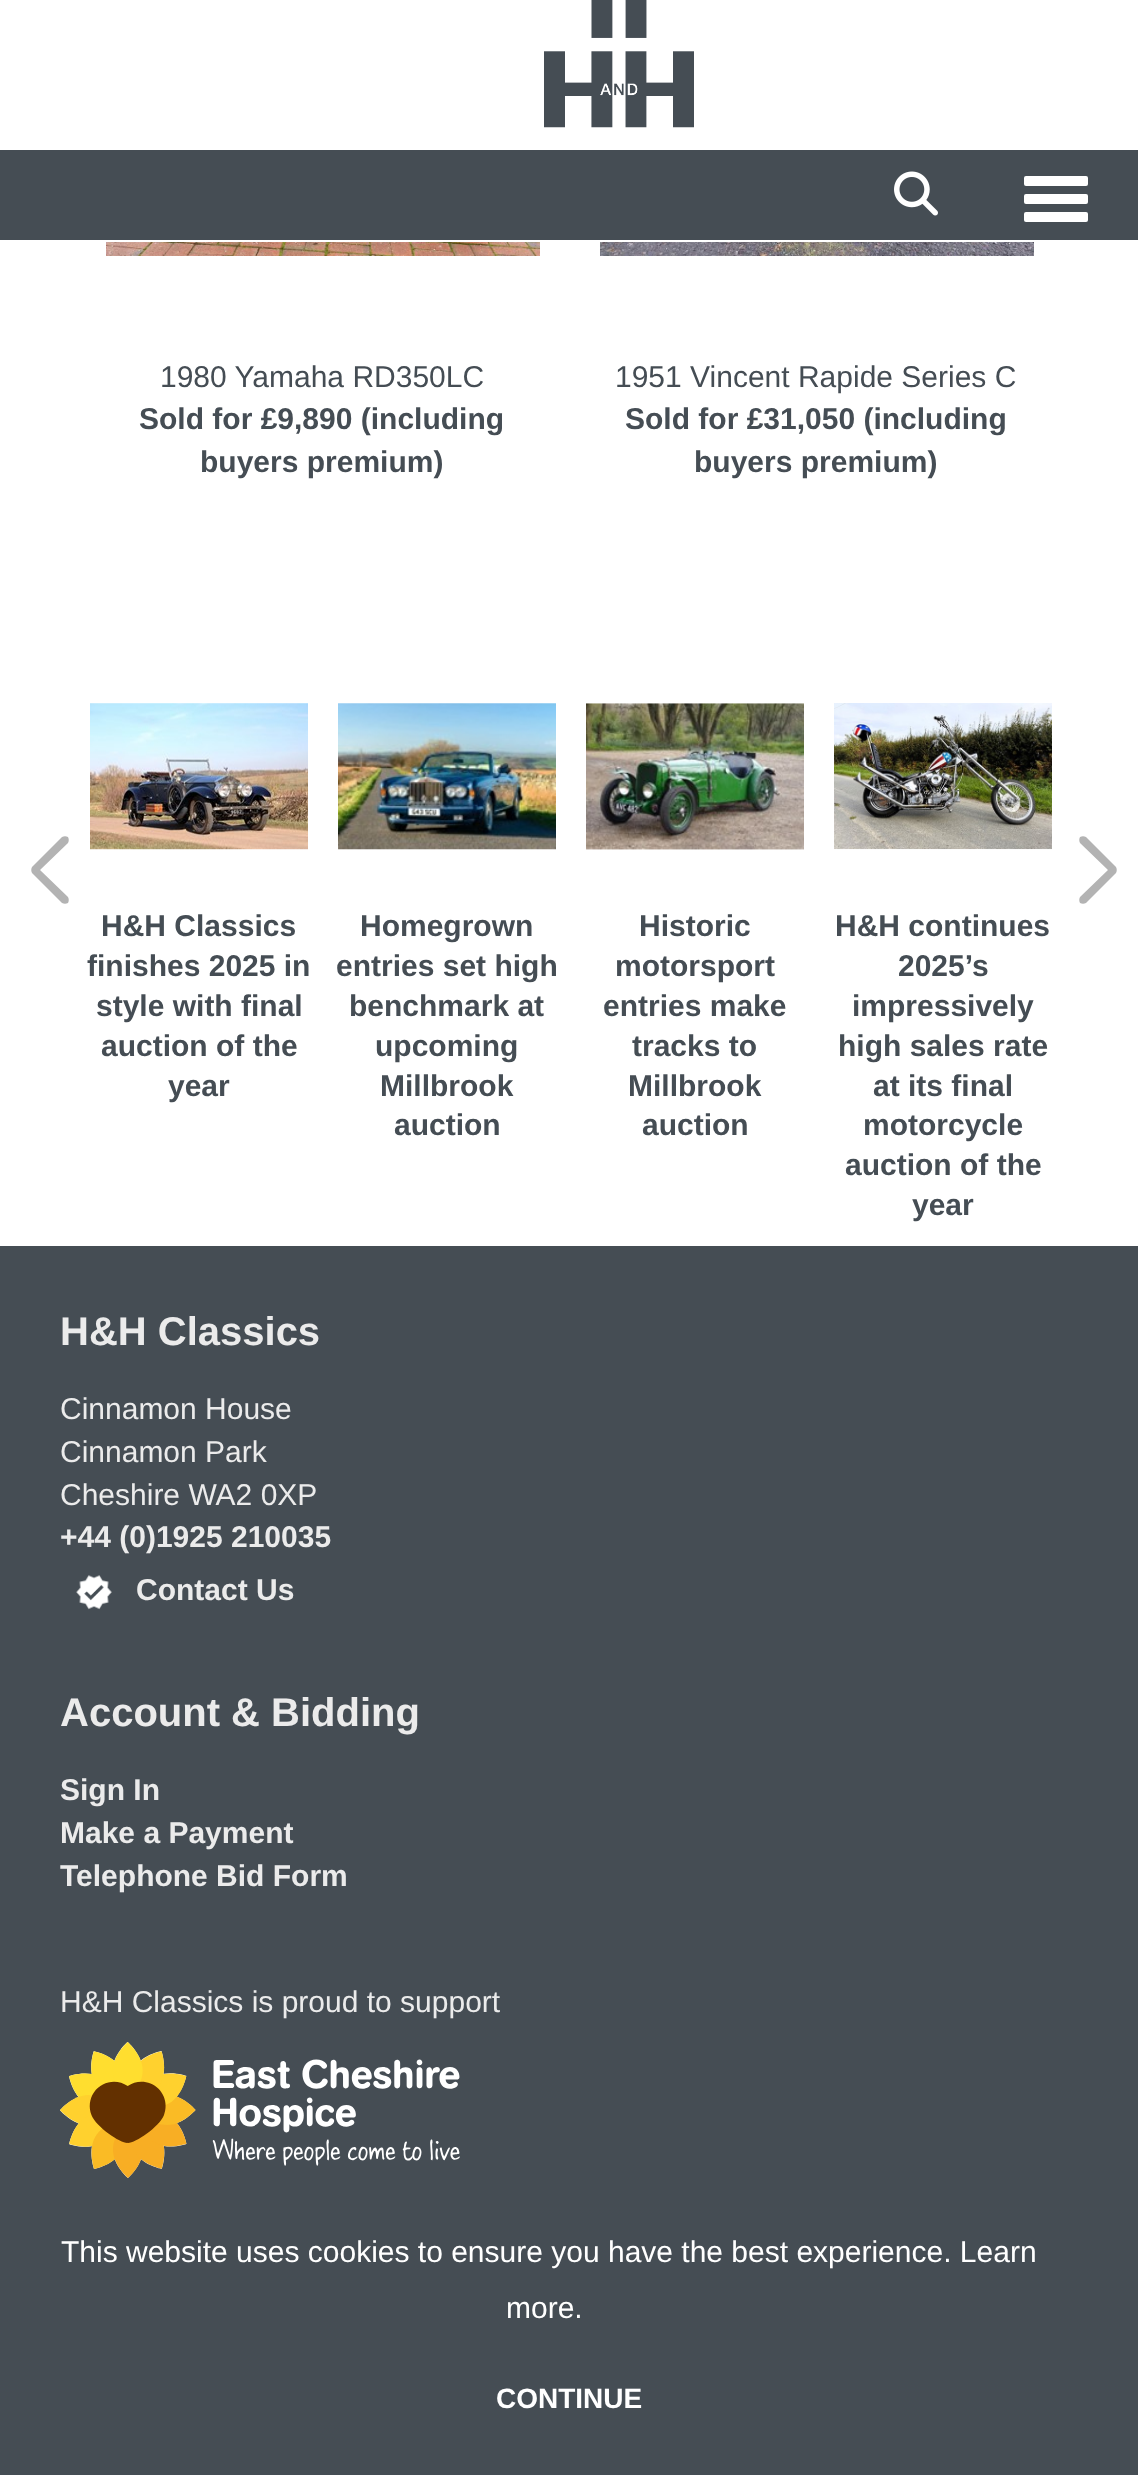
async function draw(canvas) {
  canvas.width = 1138;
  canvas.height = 2475;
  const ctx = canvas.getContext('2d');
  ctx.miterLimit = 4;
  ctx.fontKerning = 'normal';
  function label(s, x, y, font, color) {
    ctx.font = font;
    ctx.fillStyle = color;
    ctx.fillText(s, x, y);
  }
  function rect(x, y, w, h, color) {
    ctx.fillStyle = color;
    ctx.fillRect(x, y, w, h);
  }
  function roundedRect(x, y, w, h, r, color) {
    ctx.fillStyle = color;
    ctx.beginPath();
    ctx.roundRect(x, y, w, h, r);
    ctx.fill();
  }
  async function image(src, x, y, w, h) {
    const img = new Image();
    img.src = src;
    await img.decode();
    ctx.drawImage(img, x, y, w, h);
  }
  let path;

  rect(0, 0, 1138, 2475, '#fff');
  await image('assets/img1.png', 544, 0, 150, 128);
  rect(0, 150, 1138, 90, '#454d54');
  await image('assets/img2.png', 894, 171, 44, 45);
  roundedRect(1024, 176, 64, 10, 2, '#fff');
  roundedRect(1024, 194, 64, 10, 2, '#fff');
  roundedRect(1024, 212, 64, 10, 2, '#fff');
  await image('assets/img3.png', 106, 242, 434, 14);
  label('1980 Yamaha RD350LC', 160, 387, '30px Liberation Sans', '#454d54');
  label('Sold for £9,890 (including', 139, 429, 'bold 30px Liberation Sans', '#454d54');
  label('buyers premium)', 200, 472, 'bold 30px Liberation Sans', '#454d54');
  await image('assets/img4.png', 600, 242, 434, 14);
  label('1951 Vincent Rapide Series C', 615, 387, '30px Liberation Sans', '#454d54');
  label('Sold for £31,050 (including', 625, 429, 'bold 30px Liberation Sans', '#454d54');
  label('buyers premium)', 694, 472, 'bold 30px Liberation Sans', '#454d54');
  ctx.fillStyle = '#b3b3b3';
  path = new Path2D('M32 867C31 869 31 871 32 873L62 903C64 904 66 904 68 903C69 901 69 899 68 897L40 870L68 843C69 841 69 839 68 837C66 836 64 836 62 837Z');
  ctx.fill(path);
  path = new Path2D('M1116 867C1117 869 1117 871 1116 873L1086 903C1084 904 1082 904 1080 903C1079 901 1079 899 1080 897L1108 870L1080 843C1079 841 1079 839 1080 837C1082 836 1084 836 1086 837Z');
  ctx.fill(path);
  await image('assets/img5.png', 90, 703, 218, 147);
  label('H&H Classics', 101, 936, 'bold 30px Liberation Sans', '#454d54');
  label('finishes 2025 in', 87, 976, 'bold 30px Liberation Sans', '#454d54');
  label('style with final', 96, 1016, 'bold 30px Liberation Sans', '#454d54');
  label('auction of the', 101, 1056, 'bold 30px Liberation Sans', '#454d54');
  label('year', 168, 1096, 'bold 30px Liberation Sans', '#454d54');
  await image('assets/img6.png', 338, 703, 218, 147);
  label('Homegrown', 360, 936, 'bold 30px Liberation Sans', '#454d54');
  label('entries set high', 336, 976, 'bold 30px Liberation Sans', '#454d54');
  label('benchmark at', 349, 1016, 'bold 30px Liberation Sans', '#454d54');
  label('upcoming', 375, 1056, 'bold 30px Liberation Sans', '#454d54');
  label('Millbrook', 380, 1096, 'bold 30px Liberation Sans', '#454d54');
  label('auction', 394, 1135, 'bold 30px Liberation Sans', '#454d54');
  await image('assets/img7.png', 586, 703, 218, 147);
  label('Historic', 639, 936, 'bold 30px Liberation Sans', '#454d54');
  label('motorsport', 615, 976, 'bold 30px Liberation Sans', '#454d54');
  label('entries make', 603, 1016, 'bold 30px Liberation Sans', '#454d54');
  label('tracks to', 632, 1056, 'bold 30px Liberation Sans', '#454d54');
  label('Millbrook', 628, 1096, 'bold 30px Liberation Sans', '#454d54');
  label('auction', 642, 1135, 'bold 30px Liberation Sans', '#454d54');
  await image('assets/img8.png', 834, 703, 218, 147);
  label('H&H continues', 835, 936, 'bold 30px Liberation Sans', '#454d54');
  label('2025’s', 898, 976, 'bold 30px Liberation Sans', '#454d54');
  label('impressively', 852, 1016, 'bold 30px Liberation Sans', '#454d54');
  label('high sales rate', 838, 1056, 'bold 30px Liberation Sans', '#454d54');
  label('at its final', 873, 1096, 'bold 30px Liberation Sans', '#454d54');
  label('motorcycle', 863, 1135, 'bold 30px Liberation Sans', '#454d54');
  label('auction of the', 845, 1175, 'bold 30px Liberation Sans', '#454d54');
  label('year', 912, 1215, 'bold 30px Liberation Sans', '#454d54');
  rect(0, 1246, 1138, 1229, '#454d54');
  label('H&H Classics', 60, 1345, 'bold 40px Liberation Sans', '#ebebeb');
  label('Cinnamon House', 60, 1419, '30px Liberation Sans', '#ebebeb');
  label('Cinnamon Park', 60, 1462, '30px Liberation Sans', '#ebebeb');
  label('Cheshire WA2 0XP', 60, 1505, '30px Liberation Sans', '#ebebeb');
  label('+44 (0)1925 210035', 60, 1547, 'bold 30px Liberation Sans', '#ebebeb');
  await image('assets/img9.png', 76, 1575, 36, 35);
  label('Contact Us', 136, 1600, 'bold 30px Liberation Sans', '#ebebeb');
  label('Account & Bidding', 60, 1726, 'bold 40px Liberation Sans', '#ebebeb');
  label('Sign In', 60, 1800, 'bold 30px Liberation Sans', '#ebebeb');
  label('Make a Payment', 60, 1843, 'bold 30px Liberation Sans', '#ebebeb');
  label('Telephone Bid Form', 60, 1886, 'bold 30px Liberation Sans', '#ebebeb');
  label('H&H Classics is proud to support', 60, 2012, '30px Liberation Sans', '#ebebeb');
  await image('assets/img10.png', 60, 2042, 400, 136);
  label('This website uses cookies to ensure you have the best experience. Learn', 61, 2262, '30px Liberation Sans', '#fff');
  label('more.', 506, 2318, '30px Liberation Sans', '#fff');
  label('CONTINUE', 496, 2408, 'bold 28px Liberation Sans', '#fff');
}

draw(document.querySelector('canvas'));
